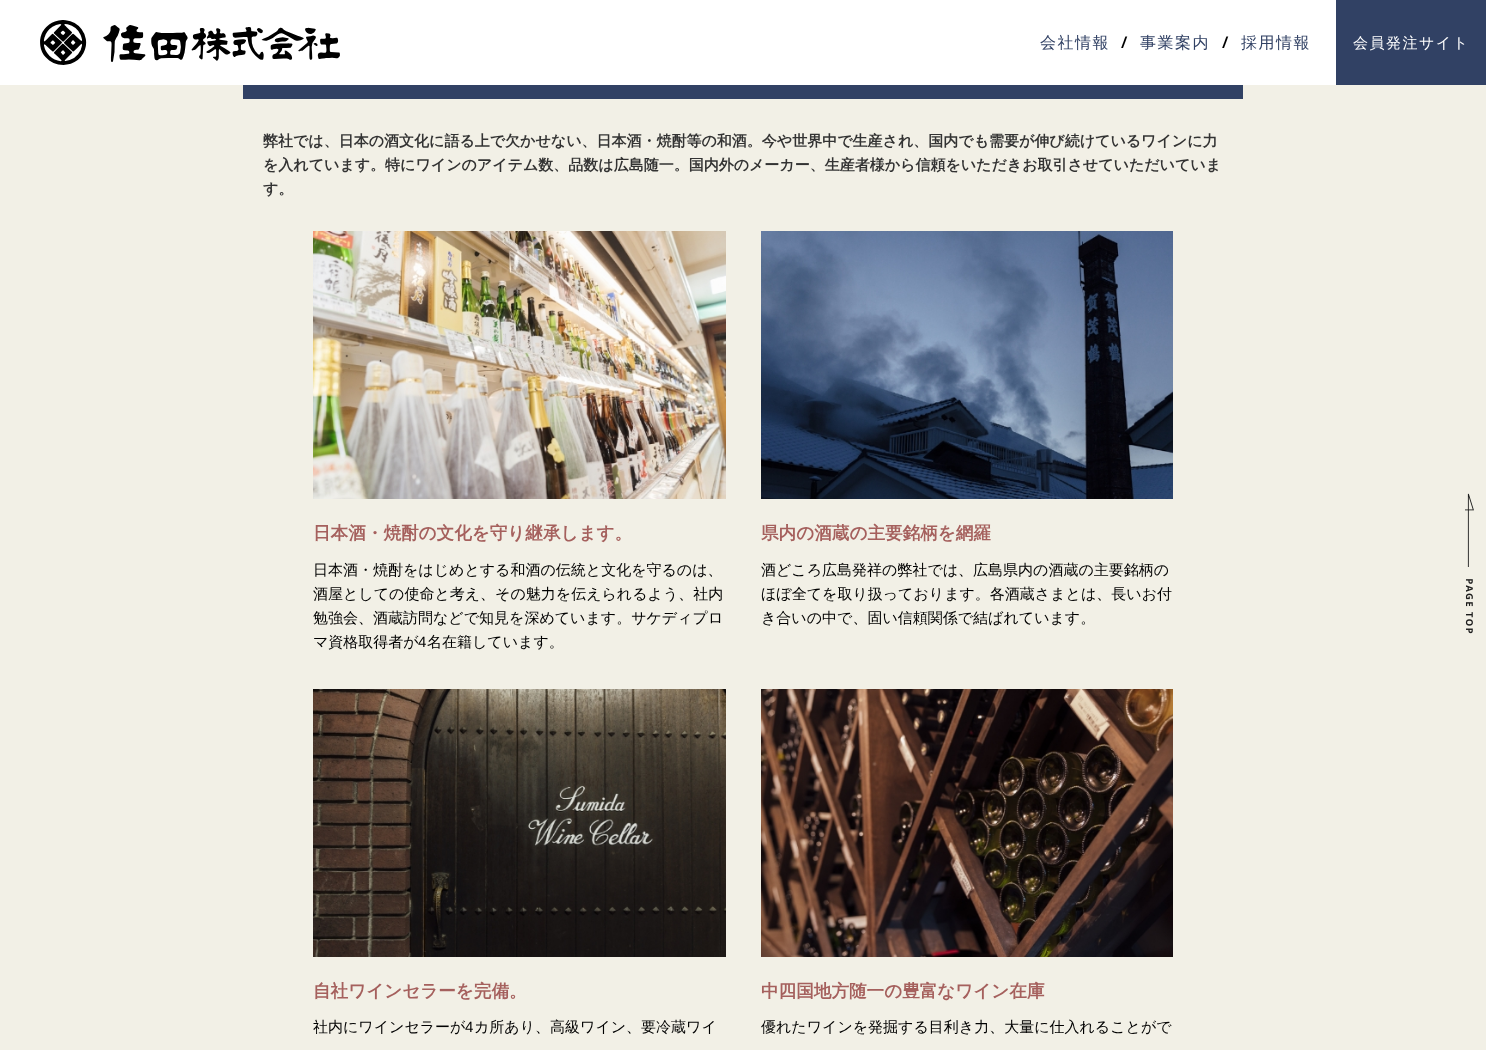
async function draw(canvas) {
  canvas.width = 1486;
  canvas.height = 1050;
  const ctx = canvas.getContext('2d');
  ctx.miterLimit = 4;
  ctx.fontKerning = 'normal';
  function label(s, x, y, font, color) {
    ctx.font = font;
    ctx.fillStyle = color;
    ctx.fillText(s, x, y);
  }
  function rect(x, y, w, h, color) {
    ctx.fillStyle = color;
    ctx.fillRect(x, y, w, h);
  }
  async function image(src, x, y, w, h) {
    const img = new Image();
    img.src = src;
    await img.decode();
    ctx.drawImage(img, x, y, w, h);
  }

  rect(0, 0, 1486, 1050, '#f2f0e6');
  rect(0, 0, 1336, 85, '#fff');
  await image('assets/img1.png', 40, 20, 300, 45);
  ctx.letterSpacing = '1.5px';
  label('会社情報', 1040, 48, '500 16px WenQuanYi Zen Hei', '#314164');
  label('/', 1121, 48, '600 16px Noto Sans', '#000');
  label('事業案内', 1140, 48, '500 16px WenQuanYi Zen Hei', '#314164');
  label('/', 1222, 48, '600 16px Noto Sans', '#000');
  label('採用情報', 1241, 48, '500 16px WenQuanYi Zen Hei', '#314164');
  rect(1336, 0, 150, 85, '#314164');
  label('会員発注サイト', 1353, 48, '500 15px WenQuanYi Zen Hei', '#fff');
  rect(243, 85, 1000, 14, '#314164');
  ctx.letterSpacing = '0px';
  label('弊社では、日本の酒文化に語る上で欠かせない、日本酒・焼酎等の和酒。今や世界中で生産され、国内でも需要が伸び続けているワインに力', 263, 146, 'bold 15px WenQuanYi Zen Hei', '#333');
  label('を入れています。特にワインのアイテム数、品数は広島随一。国内外のメーカー、生産者様から信頼をいただきお取引させていただいていま', 263, 170, 'bold 15px WenQuanYi Zen Hei', '#333');
  label('す。', 263, 194, 'bold 15px WenQuanYi Zen Hei', '#333');
  await image('assets/img2.png', 313, 231, 413, 268);
  label('日本酒・焼酎の文化を守り継承します。', 313, 539, 'bold 17.6px WenQuanYi Zen Hei', '#a5605d');
  label('日本酒・焼酎をはじめとする和酒の伝統と文化を守るのは、', 313, 575, '500 15px WenQuanYi Zen Hei', '#000');
  label('酒屋としての使命と考え、その魅力を伝えられるよう、社内', 313, 599, '500 15px WenQuanYi Zen Hei', '#000');
  label('勉強会、酒蔵訪問などで知見を深めています。サケディプロ', 313, 623, '500 15px WenQuanYi Zen Hei', '#000');
  label('マ資格取得者が', 313, 647, '500 15px WenQuanYi Zen Hei', '#000');
  label('4', 418, 647, '15px Liberation Sans', '#000');
  label('名在籍しています。', 427, 647, '500 15px WenQuanYi Zen Hei', '#000');
  await image('assets/img3.png', 761, 231, 412, 268);
  label('県内の酒蔵の主要銘柄を網羅', 761, 539, 'bold 17.6px WenQuanYi Zen Hei', '#a5605d');
  label('酒どころ広島発祥の弊社では、広島県内の酒蔵の主要銘柄の', 761, 575, '500 15px WenQuanYi Zen Hei', '#000');
  label('ほぼ全てを取り扱っております。各酒蔵さまとは、長いお付', 761, 599, '500 15px WenQuanYi Zen Hei', '#000');
  label('き合いの中で、固い信頼関係で結ばれています。', 761, 623, '500 15px WenQuanYi Zen Hei', '#000');
  await image('assets/img4.png', 313, 689, 413, 268);
  label('自社ワインセラーを完備。', 313, 997, 'bold 17.6px WenQuanYi Zen Hei', '#a5605d');
  label('社内にワインセラーが', 313, 1032, '500 15px WenQuanYi Zen Hei', '#000');
  label('4', 465, 1032, '15px Liberation Sans', '#000');
  label('カ所あり、高級ワイン、要冷蔵ワイ', 474, 1032, '500 15px WenQuanYi Zen Hei', '#000');
  await image('assets/img5.png', 761, 689, 412, 268);
  label('中四国地方随一の豊富なワイン在庫', 761, 997, 'bold 17.6px WenQuanYi Zen Hei', '#a5605d');
  label('優れたワインを発掘する目利き力、大量に仕入れることがで', 761, 1032, '500 15px WenQuanYi Zen Hei', '#000');
  await image('assets/img6.png', 1465, 493, 9, 141);
}

draw(document.querySelector('canvas'));
